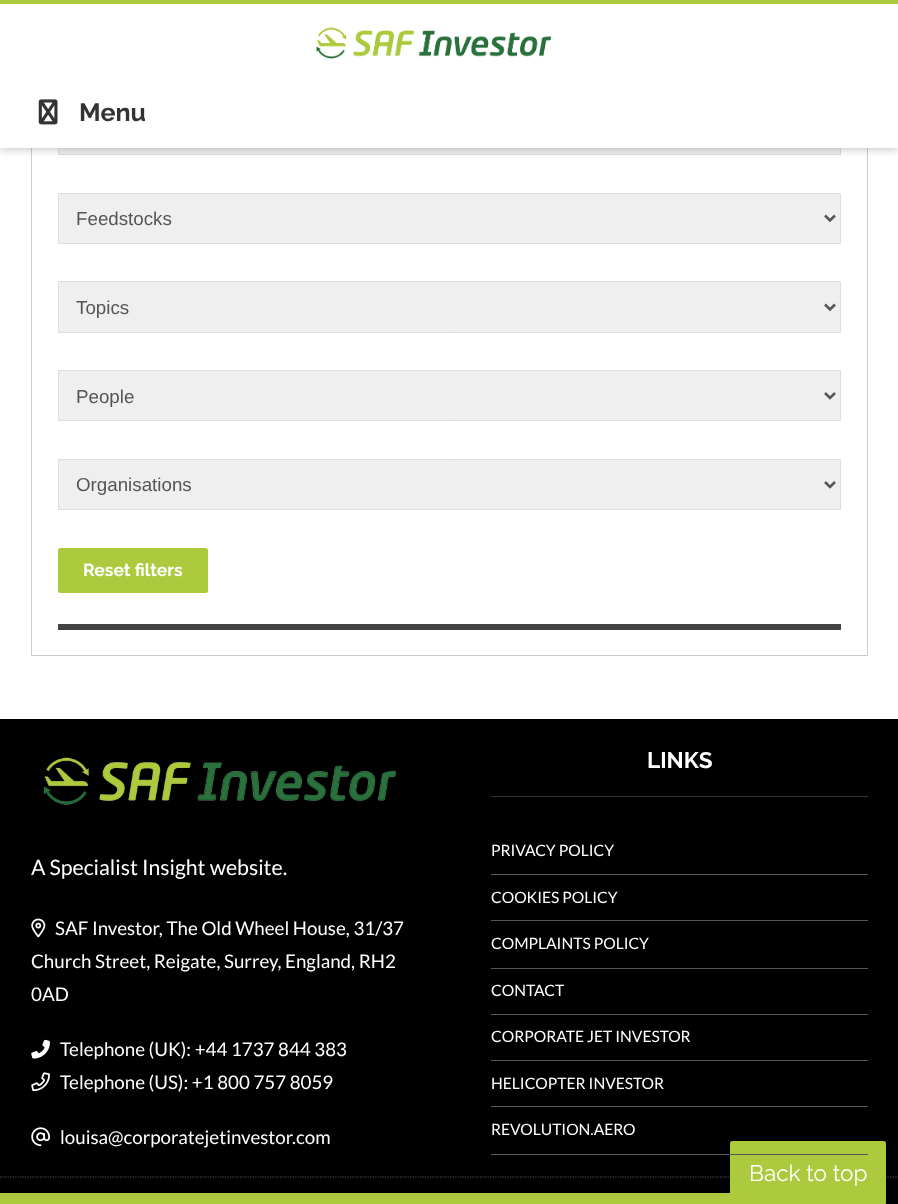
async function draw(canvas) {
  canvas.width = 898;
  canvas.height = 1204;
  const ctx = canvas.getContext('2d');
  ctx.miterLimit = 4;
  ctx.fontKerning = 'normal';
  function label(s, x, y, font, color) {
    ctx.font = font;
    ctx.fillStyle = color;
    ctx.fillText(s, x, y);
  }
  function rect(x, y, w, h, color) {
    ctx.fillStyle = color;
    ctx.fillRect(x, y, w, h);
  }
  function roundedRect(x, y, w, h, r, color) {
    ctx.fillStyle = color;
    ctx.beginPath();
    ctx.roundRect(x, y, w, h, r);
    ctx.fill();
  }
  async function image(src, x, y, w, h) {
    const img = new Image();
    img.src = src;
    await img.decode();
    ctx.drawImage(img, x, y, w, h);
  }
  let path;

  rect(0, 0, 898, 1204, '#fff');
  ctx.strokeStyle = '#ccc';
  ctx.strokeRect(31.5, -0.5, 836, 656);
  rect(59, 148, 781, 6, '#efefef');
  ctx.strokeStyle = '#ddd';
  ctx.strokeRect(58.5, 104.5, 782, 50);
  ctx.fillStyle = '#00000033';
  ctx.filter = 'blur(4px)';
  ctx.beginPath();
  ctx.rect(0, 3, 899, 147);
  ctx.fill();
  ctx.filter = 'none';
  rect(0, 4, 898, 144, '#fff');
  rect(0, 0, 898, 4, '#adc93e');
  await image('assets/img1.png', 316, 27, 236, 32);
  await image('assets/img2.png', 38, 99, 20, 26);
  label('Menu', 79, 121, 'bold 25px Raleway', '#333');
  rect(58, 624, 783, 6, '#444');
  ctx.fillStyle = '#efefef';
  ctx.beginPath();
  ctx.rect(58.5, 193.5, 782, 50);
  ctx.fill();
  ctx.stroke();
  path = new Path2D('M825 215.5L830 220.5L835 215.5');
  ctx.strokeStyle = '#555';
  ctx.lineWidth = 2.5;
  ctx.stroke(path);
  label('Feedstocks', 76, 225, '18.75px Liberation Sans', '#555');
  ctx.fillStyle = '#efefef';
  ctx.beginPath();
  ctx.rect(58.5, 281.5, 782, 51);
  ctx.fill();
  ctx.strokeStyle = '#ddd';
  ctx.lineWidth = 1;
  ctx.stroke();
  path = new Path2D('M825 304.5L830 309.5L835 304.5');
  ctx.strokeStyle = '#555';
  ctx.lineWidth = 2.5;
  ctx.stroke(path);
  label('Topics', 76, 314, '18.75px Liberation Sans', '#555');
  ctx.fillStyle = '#efefef';
  ctx.beginPath();
  ctx.rect(58.5, 370.5, 782, 50);
  ctx.fill();
  ctx.strokeStyle = '#ddd';
  ctx.lineWidth = 1;
  ctx.stroke();
  path = new Path2D('M825 393L830 398L835 393');
  ctx.strokeStyle = '#555';
  ctx.lineWidth = 2.5;
  ctx.stroke(path);
  label('People', 76, 403, '18.75px Liberation Sans', '#555');
  ctx.fillStyle = '#efefef';
  ctx.beginPath();
  ctx.rect(58.5, 459.5, 782, 50);
  ctx.fill();
  ctx.strokeStyle = '#ddd';
  ctx.lineWidth = 1;
  ctx.stroke();
  path = new Path2D('M825 482L830 487L835 482');
  ctx.strokeStyle = '#555';
  ctx.lineWidth = 2.5;
  ctx.stroke(path);
  label('Organisations', 76, 491, '18.75px Liberation Sans', '#555');
  roundedRect(58, 548, 150, 45, 2.5, '#adc93e');
  label('Reset filters', 83, 576, 'bold 17.5px Raleway', '#fff');
  rect(0, 719, 898, 485, '#000');
  await image('assets/img3.png', 43, 757, 354, 48);
  label('A Specialist Insight website.', 31, 875, '21.25px Lato', '#fff');
  await image('assets/img4.png', 31, 918, 15, 20);
  label('SAF Investor, The Old Wheel House, 31/37', 55, 935, '18.75px Lato', '#fff');
  label('Church Street, Reigate, Surrey, England, RH2', 31, 968, '18.75px Lato', '#fff');
  label('0AD', 31, 1001, '18.75px Lato', '#fff');
  await image('assets/img5.png', 31, 1039, 19, 20);
  label('Telephone (UK): +44 1737 844 383', 60, 1056, '18.75px Lato', '#fff');
  await image('assets/img6.png', 31, 1072, 19, 20);
  label('Telephone (US): +1 800 757 8059', 60, 1089, '18.75px Lato', '#fff');
  await image('assets/img7.png', 31, 1127, 19, 20);
  label('louisa@corporatejetinvestor.com', 60, 1144, '18.75px Lato', '#fff');
  rect(491, 796, 377, 1, '#333');
  label('LINKS', 647, 768, 'bold 22.5px Raleway', '#fff');
  rect(491, 874, 377, 1, '#555');
  label('PRIVACY POLICY', 491, 856, '15.6px Lato', '#fff');
  rect(491, 920, 377, 1, '#555');
  label('COOKIES POLICY', 491, 903, '15.6px Lato', '#fff');
  rect(491, 968, 377, 1, '#555');
  label('COMPLAINTS POLICY', 491, 949, '15.6px Lato', '#fff');
  rect(491, 1014, 377, 1, '#555');
  label('CONTACT', 491, 996, '15.6px Lato', '#fff');
  rect(491, 1060, 377, 1, '#555');
  label('CORPORATE JET INVESTOR', 491, 1042, '15.6px Lato', '#fff');
  rect(491, 1106, 377, 1, '#555');
  label('HELICOPTER INVESTOR', 491, 1089, '15.6px Lato', '#fff');
  path = new Path2D('M0 1177H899');
  ctx.lineWidth = 1.2;
  ctx.setLineDash([1.25, 1.25]);
  ctx.stroke(path);
  roundedRect(730, 1141, 156, 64, 2.5, '#adc93e');
  rect(491, 1154, 377, 1, '#555');
  label('REVOLUTION.AERO', 491, 1135, '15.6px Lato', '#fff');
  label('Back to top', 749, 1181, '22.5px Raleway', '#fff');
  rect(0, 1193, 731, 11, '#adc93e');
}

draw(document.querySelector('canvas'));
